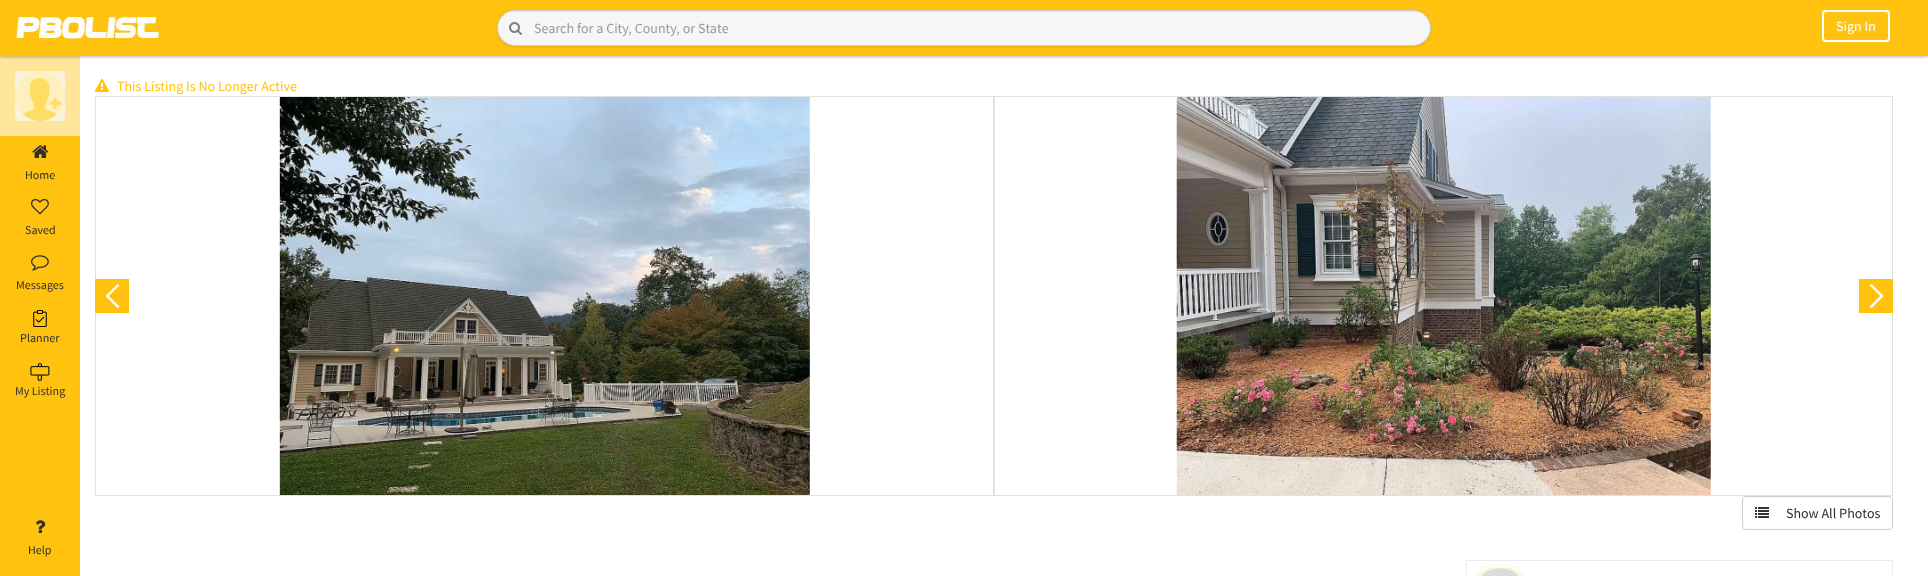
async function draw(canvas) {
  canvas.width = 1928;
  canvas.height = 576;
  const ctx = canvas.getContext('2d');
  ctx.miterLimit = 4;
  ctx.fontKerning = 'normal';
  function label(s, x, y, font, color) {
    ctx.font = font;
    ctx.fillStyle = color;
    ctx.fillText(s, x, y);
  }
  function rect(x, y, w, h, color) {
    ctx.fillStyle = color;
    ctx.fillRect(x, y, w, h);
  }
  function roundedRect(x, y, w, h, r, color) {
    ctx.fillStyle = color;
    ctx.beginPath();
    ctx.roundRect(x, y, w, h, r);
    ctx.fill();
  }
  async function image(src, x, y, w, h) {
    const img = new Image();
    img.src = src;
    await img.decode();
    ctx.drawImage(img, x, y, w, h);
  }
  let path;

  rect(0, 0, 1928, 576, '#fff');
  rect(0, 56, 80, 80, '#ffe599');
  ctx.fillStyle = '#32323259';
  ctx.filter = 'blur(1.5px)';
  ctx.beginPath();
  ctx.rect(0, 1, 1928, 56);
  ctx.fill();
  ctx.filter = 'none';
  rect(0, 0, 1928, 56, '#ffc20f');
  await image('assets/img1.png', 15, 15, 144, 24);
  ctx.fillStyle = '#0000001a';
  ctx.filter = 'blur(1.5px)';
  ctx.beginPath();
  ctx.roundRect(497, 11, 934, 36, 18);
  ctx.fill();
  ctx.filter = 'none';
  ctx.fillStyle = '#f6f6f6';
  ctx.beginPath();
  ctx.roundRect(497.5, 10.5, 933, 35, 17.5);
  ctx.fill();
  ctx.strokeStyle = '#ccc';
  ctx.stroke();
  await image('assets/img2.png', 509, 22, 13, 13);
  ctx.fillStyle = '#00000012';
  path = new Path2D('M515 11L509 12H1419L1413 11Z');
  ctx.fill(path);
  label('Search for a City, County, or State', 534, 33, '14px Source Sans Pro', '#999');
  ctx.beginPath();
  ctx.roundRect(1823, 11, 66, 30, 3);
  ctx.strokeStyle = '#fff';
  ctx.lineWidth = 2;
  ctx.stroke();
  label('Sign In', 1836, 31, '14px Source Sans Pro', '#fff');
  rect(0, 136, 80, 440, '#ffc20f');
  roundedRect(15, 71, 50, 50, 4, '#f8f4d9');
  await image('assets/img3.png', 15, 71, 50, 50);
  await image('assets/img4.png', 32, 145, 17, 13);
  label('Home', 25, 179, '12px Source Sans Pro', '#2f2f2f');
  await image('assets/img5.png', 31, 199, 18, 16);
  label('Saved', 25, 234, '12px Source Sans Pro', '#2f2f2f');
  await image('assets/img6.png', 31, 255, 18, 16);
  label('Messages', 16, 289, '12px Source Sans Pro', '#2f2f2f');
  await image('assets/img7.png', 33, 310, 14, 17);
  label('Planner', 20, 342, '12px Source Sans Pro', '#2f2f2f');
  await image('assets/img8.png', 30, 363, 20, 18);
  label('My Listing', 15, 395, '12px Source Sans Pro', '#2f2f2f');
  await image('assets/img9.png', 36, 520, 10, 13);
  label('Help', 28, 554, '12px Source Sans Pro', '#2f2f2f');
  await image('assets/img10.png', 95, 79, 14, 13);
  label('This Listing Is No Longer Active', 117, 91, '14px Source Sans Pro', '#ffc20f');
  ctx.strokeStyle = '#e2e2e2';
  ctx.lineWidth = 1;
  ctx.strokeRect(95.5, 96.5, 898, 399);
  await image('assets/img11.png', 279, 97, 531, 398);
  ctx.strokeRect(994.5, 96.5, 898, 399);
  await image('assets/img12.png', 1176, 97, 535, 398);
  rect(95, 279, 34, 34, '#ffc20f');
  await image('assets/img13.png', 105, 283, 15, 26);
  rect(1859, 279, 34, 34, '#ffc20f');
  await image('assets/img14.png', 1869, 283, 15, 26);
  ctx.beginPath();
  ctx.roundRect(1742.5, 496.5, 150, 33, 3.5);
  ctx.strokeStyle = '#ccc';
  ctx.stroke();
  await image('assets/img15.png', 1755, 507, 14, 11);
  label('Show All Photos', 1786, 518, '14px Source Sans Pro', '#2f2f2f');
  ctx.strokeStyle = '#ebebeb';
  ctx.strokeRect(1466.5, 560.5, 426, 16);
  ctx.fillStyle = '#f8f4d9';
  ctx.beginPath();
  ctx.roundRect(1472, 566, 56, 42, 28);
  ctx.fill();
  ctx.strokeStyle = '#fffdf1';
  ctx.lineWidth = 4;
  ctx.stroke();
  await image('assets/img16.png', 1481, 568, 38, 8);
}

draw(document.querySelector('canvas'));
